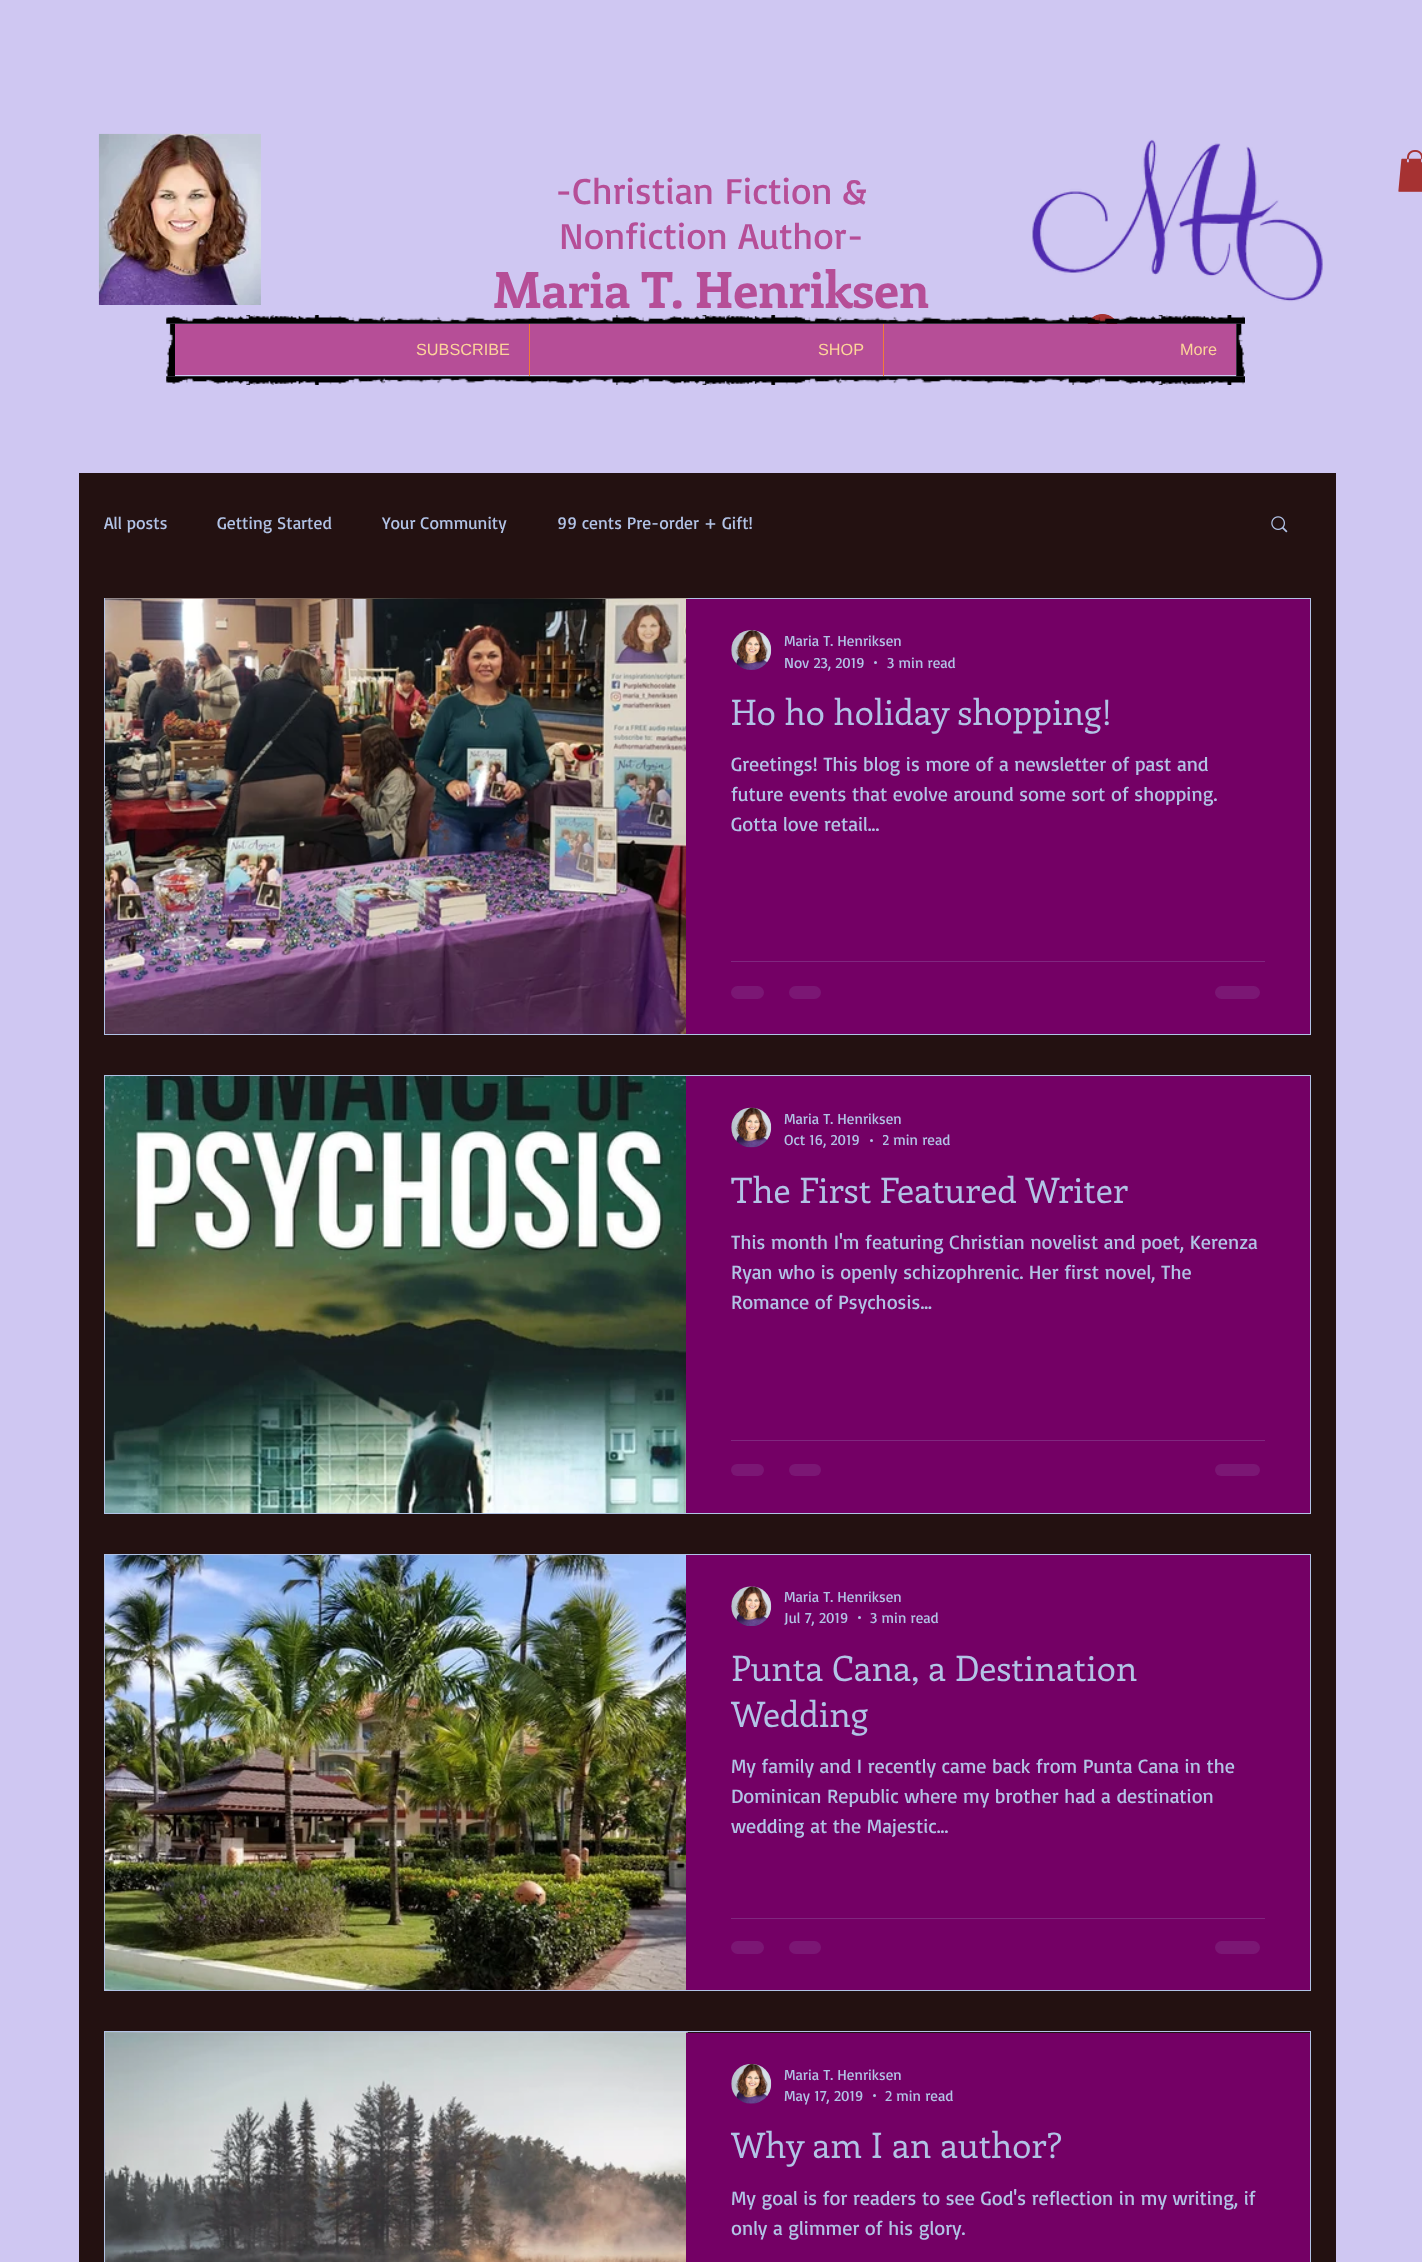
async function draw(canvas) {
  canvas.width = 1422;
  canvas.height = 2262;
  const ctx = canvas.getContext('2d');
  ctx.miterLimit = 4;
  ctx.fontKerning = 'normal';
  function label(s, x, y, font, color) {
    ctx.font = font;
    ctx.fillStyle = color;
    ctx.fillText(s, x, y);
  }
  function rect(x, y, w, h, color) {
    ctx.fillStyle = color;
    ctx.fillRect(x, y, w, h);
  }
  function roundedRect(x, y, w, h, r, color) {
    ctx.fillStyle = color;
    ctx.beginPath();
    ctx.roundRect(x, y, w, h, r);
    ctx.fill();
  }
  async function image(src, x, y, w, h) {
    const img = new Image();
    img.src = src;
    await img.decode();
    ctx.drawImage(img, x, y, w, h);
  }

  rect(0, 0, 1422, 2262, '#cfc7f2');
  await image('assets/img1.png', 98, 133, 163, 172);
  await image('assets/img2.png', 1032, 139, 291, 163);
  await image('assets/img3.png', 1398, 150, 24, 42);
  label('-Christian Fiction &', 555, 204, '37.5px Basic', '#b64e97');
  label('Nonfiction Author-', 559, 249, '37.5px Basic', '#b64e97');
  label('Maria T. Henriksen', 493, 308, 'bold 50px Enriqueta', '#b64e97');
  await image('assets/img4.png', 1087, 314, 31, 10);
  await image('assets/img5.png', 166, 315, 1079, 9);
  await image('assets/img6.png', 166, 323, 9, 54);
  rect(175, 324, 1061, 51, '#b64e97');
  label('SUBSCRIBE', 416, 355, '16.25px Liberation Sans', '#fdd49a');
  rect(529, 324, 1, 52, '#f27a3a');
  label('SHOP', 818, 355, '16.25px Liberation Sans', '#fdd49a');
  rect(883, 324, 1, 52, '#f27a3a');
  label('More', 1180, 355, '16.25px Liberation Sans', '#fdd49a');
  await image('assets/img7.png', 1236, 323, 9, 54);
  await image('assets/img8.png', 166, 376, 1079, 9);
  rect(79, 473, 1257, 1789, '#231111');
  label('All posts', 104, 529, '17.5px Basic', '#b2c3e6');
  label('Getting Started', 217, 529, '17.5px Basic', '#b2c3e6');
  label('Your Community', 382, 529, '17.5px Basic', '#b2c3e6');
  label('99 cents Pre-order + Gift!', 557, 529, '17.5px Basic', '#b2c3e6');
  await image('assets/img9.png', 1271, 516, 17, 17);
  ctx.strokeStyle = '#b2c3e6';
  ctx.strokeRect(104.5, 598.5, 1206, 436);
  await image('assets/img10.png', 105, 598, 583, 1);
  await image('assets/img11.png', 105, 599, 581, 435);
  rect(686, 599, 624, 435, '#740065');
  await image('assets/img12.png', 731, 630, 41, 40);
  label('Maria T. Henriksen', 784, 646, '15px Basic', '#b2c3e6');
  label('Nov 23, 2019', 784, 668, '15px Basic', '#b2c3e6');
  ctx.beginPath();
  ctx.arc(875.5, 662.5, 1.5, 0, 2 * Math.PI);
  ctx.fill();
  label('3 min read', 887, 668, '15px Basic', '#b2c3e6');
  label('Ho ho holiday shopping!', 731, 725, '35px Enriqueta', '#b2c3e6');
  label('Greetings! This blog is more of a newsletter of past and', 731, 771, '20px Basic', '#b2c3e6');
  label('future events that evolve around some sort of shopping.', 731, 801, '20px Basic', '#b2c3e6');
  label('Gotta love retail...', 731, 831, '20px Basic', '#b2c3e6');
  rect(731, 961, 534, 1, '#80277f');
  roundedRect(731, 986, 33, 13, 6.5, '#7b1774');
  roundedRect(789, 986, 32, 13, 6.5, '#7b1774');
  roundedRect(1215, 986, 45, 13, 6.5, '#7b1774');
  ctx.strokeRect(104.5, 1075.5, 1206, 438);
  await image('assets/img13.png', 105, 1076, 581, 437);
  rect(686, 1076, 624, 437, '#740065');
  await image('assets/img14.png', 731, 1107, 41, 41);
  label('Maria T. Henriksen', 784, 1124, '15px Basic', '#b2c3e6');
  label('Oct 16, 2019', 784, 1145, '15px Basic', '#b2c3e6');
  ctx.beginPath();
  ctx.arc(871.5, 1140.5, 1.5, 0, 2 * Math.PI);
  ctx.fill();
  ctx.save();
  ctx.beginPath();
  ctx.rect(883, 1130, 67, 19);
  ctx.clip();
  label('2 min read', 882, 1145, '15px Basic', '#b2c3e6');
  ctx.restore();
  label('The First Featured Writer', 731, 1203, '35px Enriqueta', '#b2c3e6');
  label('This month I\'m featuring Christian novelist and poet, Kerenza', 731, 1249, '20px Basic', '#b2c3e6');
  label('Ryan who is openly schizophrenic. Her first novel, The', 731, 1279, '20px Basic', '#b2c3e6');
  label('Romance of Psychosis...', 731, 1309, '20px Basic', '#b2c3e6');
  rect(731, 1440, 534, 1, '#80277f');
  roundedRect(731, 1464, 33, 12, 6, '#7b1774');
  roundedRect(789, 1464, 32, 12, 6, '#7b1774');
  roundedRect(1215, 1464, 45, 12, 6, '#7b1774');
  ctx.strokeRect(104.5, 1554.5, 1206, 436);
  await image('assets/img15.png', 105, 1555, 581, 435);
  rect(686, 1555, 624, 435, '#740065');
  await image('assets/img16.png', 731, 1586, 41, 40);
  label('Maria T. Henriksen', 784, 1602, '15px Basic', '#b2c3e6');
  label('Jul 7, 2019', 784, 1623, '15px Basic', '#b2c3e6');
  ctx.beginPath();
  ctx.arc(859.5, 1617.5, 1.5, 0, 2 * Math.PI);
  ctx.fill();
  label('3 min read', 870, 1623, '15px Basic', '#b2c3e6');
  label('Punta Cana, a Destination', 731, 1681, '35px Enriqueta', '#b2c3e6');
  label('Wedding', 731, 1727, '35px Enriqueta', '#b2c3e6');
  label('My family and I recently came back from Punta Cana in the', 731, 1773, '20px Basic', '#b2c3e6');
  label('Dominican Republic where my brother had a destination', 731, 1803, '20px Basic', '#b2c3e6');
  label('wedding at the Majestic...', 731, 1833, '20px Basic', '#b2c3e6');
  rect(731, 1918, 534, 1, '#80277f');
  roundedRect(731, 1941, 33, 13, 6.5, '#7b1774');
  roundedRect(789, 1941, 32, 13, 6.5, '#7b1774');
  roundedRect(1215, 1941, 45, 13, 6.5, '#7b1774');
  ctx.strokeRect(104.5, 2031.5, 1206, 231);
  await image('assets/img17.png', 105, 2032, 583, 1);
  await image('assets/img18.png', 105, 2033, 581, 229);
  rect(686, 2033, 624, 229, '#740065');
  await image('assets/img19.png', 731, 2063, 41, 41);
  label('Maria T. Henriksen', 784, 2080, '15px Basic', '#b2c3e6');
  label('May 17, 2019', 784, 2101, '15px Basic', '#b2c3e6');
  ctx.beginPath();
  ctx.arc(874.5, 2095.5, 1.5, 0, 2 * Math.PI);
  ctx.fill();
  label('2 min read', 885, 2101, '15px Basic', '#b2c3e6');
  label('Why am I an author?', 731, 2158, '35px Enriqueta', '#b2c3e6');
  label('My goal is for readers to see God\'s reflection in my writing, if', 731, 2205, '20px Basic', '#b2c3e6');
  label('only a glimmer of his glory.', 731, 2235, '20px Basic', '#b2c3e6');
}

draw(document.querySelector('canvas'));
